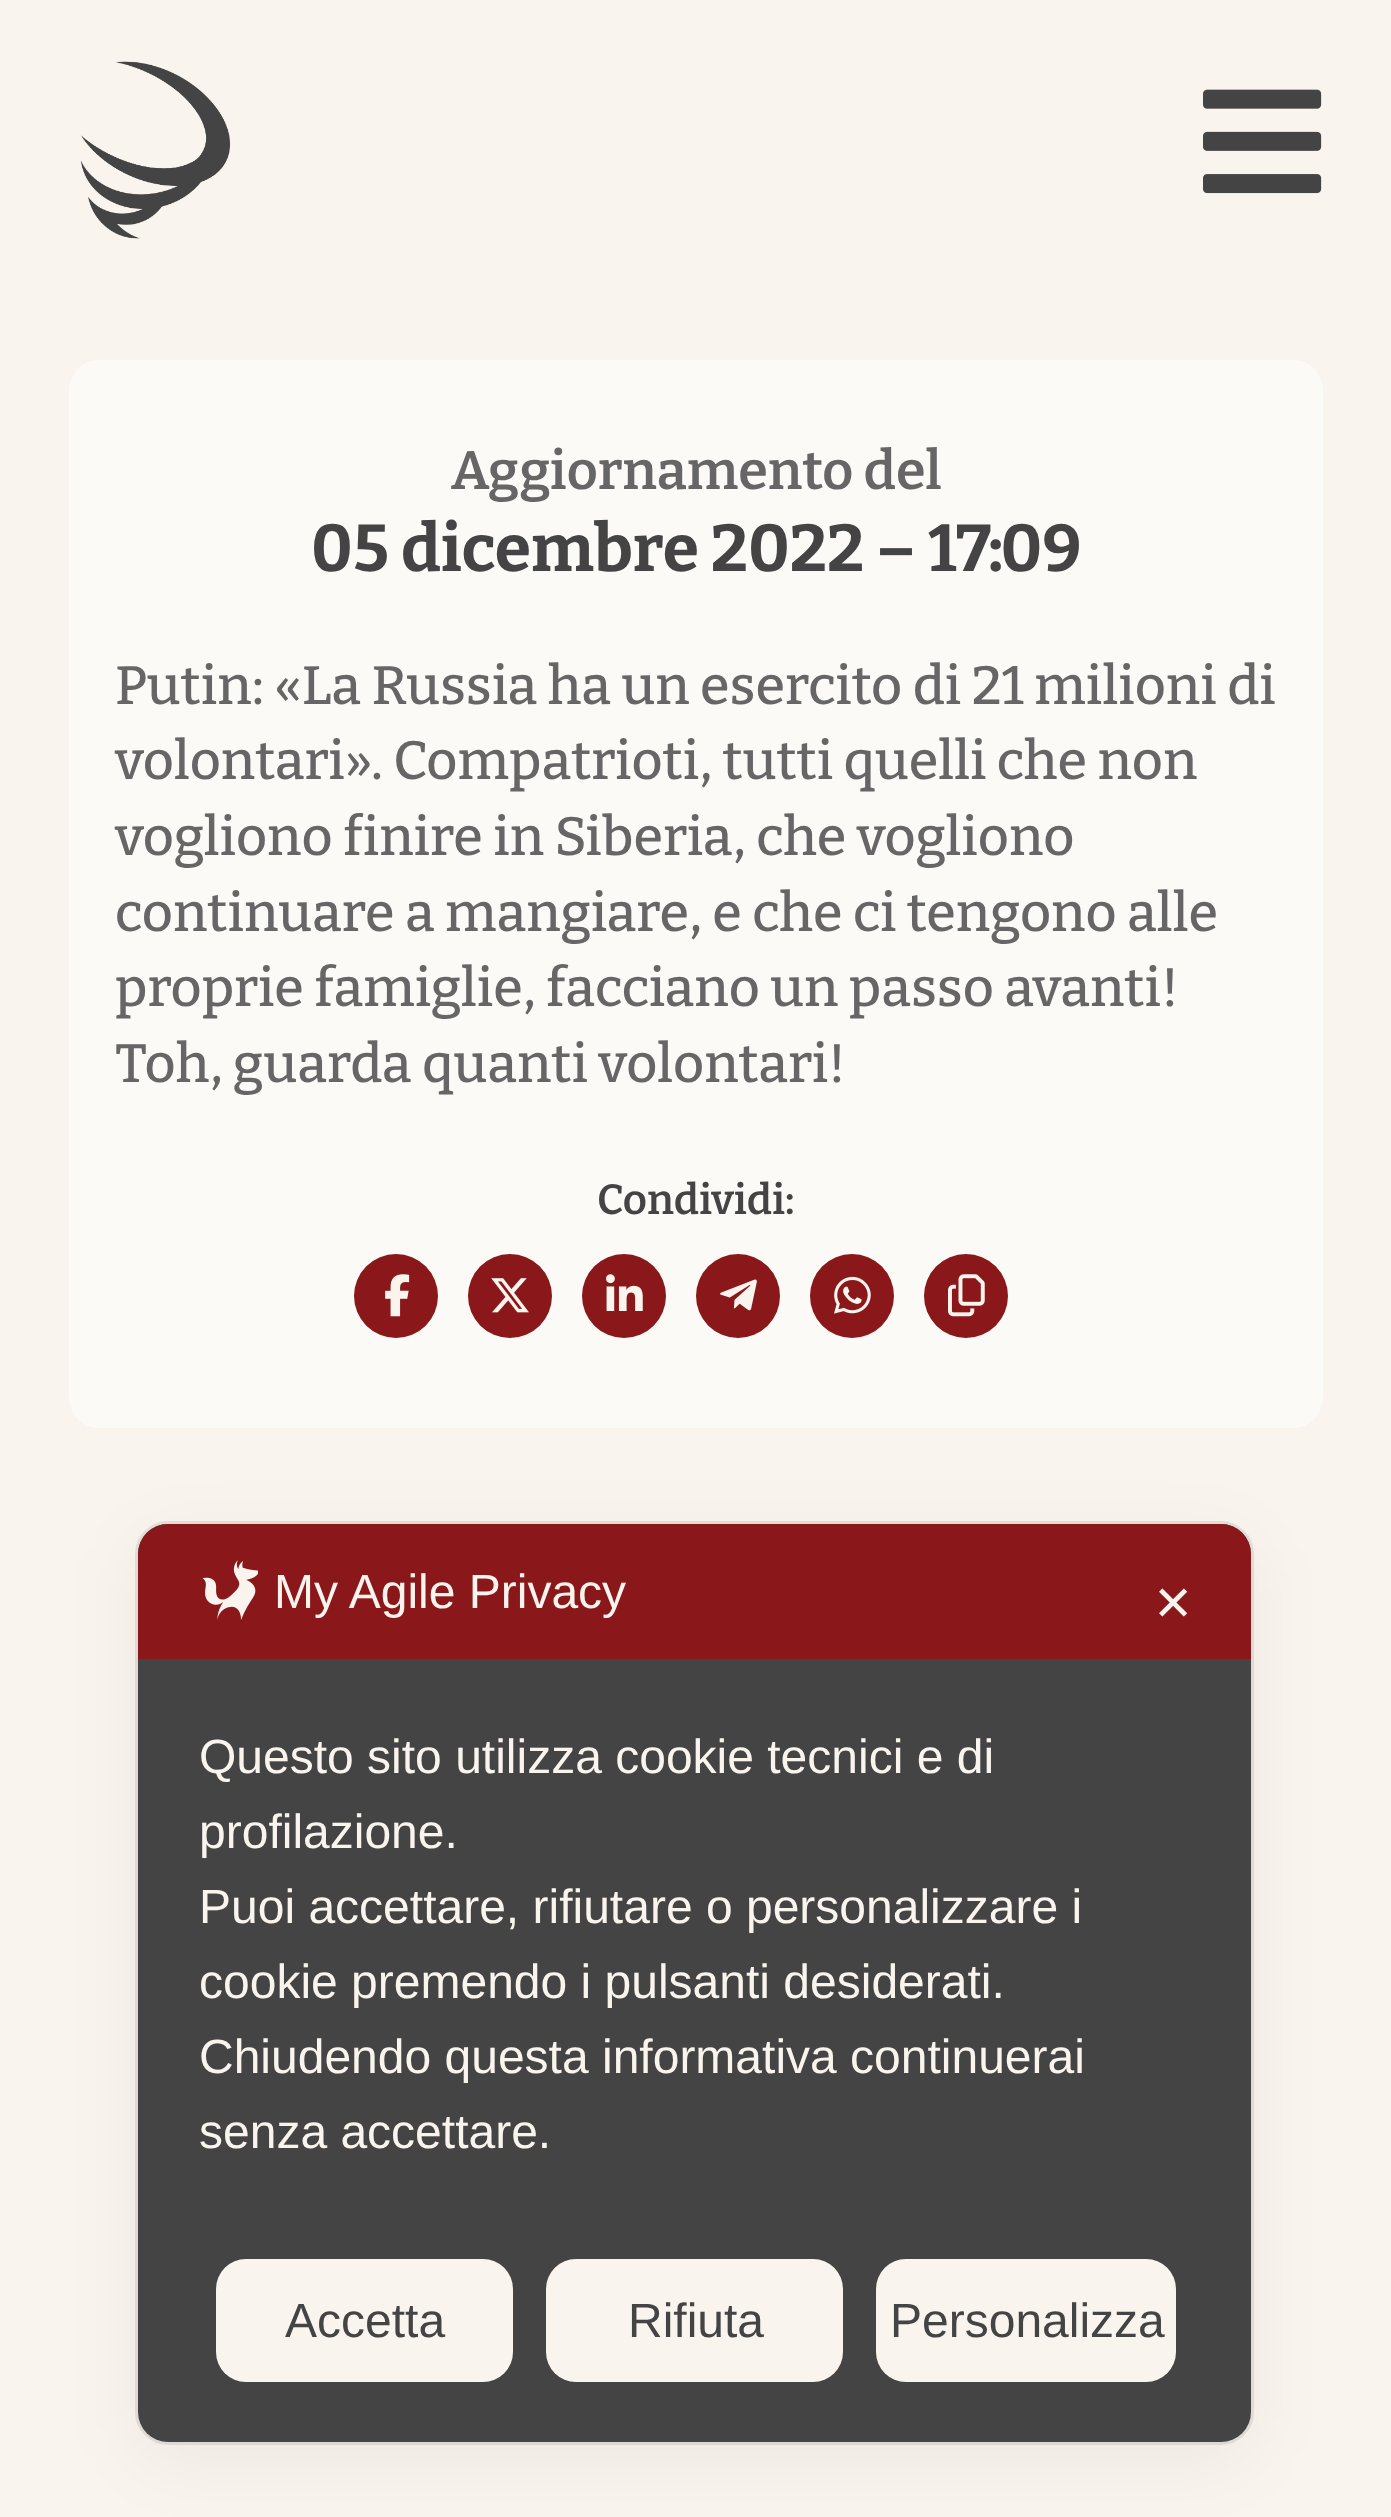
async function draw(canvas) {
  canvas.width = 1391;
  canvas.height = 2517;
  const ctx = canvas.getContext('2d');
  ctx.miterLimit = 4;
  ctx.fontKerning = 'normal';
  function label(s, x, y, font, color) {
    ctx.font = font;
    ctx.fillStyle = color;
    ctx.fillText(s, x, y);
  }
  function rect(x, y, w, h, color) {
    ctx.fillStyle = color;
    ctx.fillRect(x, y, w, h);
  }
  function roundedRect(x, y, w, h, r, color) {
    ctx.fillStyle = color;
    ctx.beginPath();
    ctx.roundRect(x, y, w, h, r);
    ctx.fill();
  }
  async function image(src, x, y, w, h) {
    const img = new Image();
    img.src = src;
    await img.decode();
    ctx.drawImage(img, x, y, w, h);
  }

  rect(0, 0, 1391, 2517, '#f9f4ed');
  await image('assets/img1.png', 80, 61, 151, 178);
  await image('assets/img2.png', 1203, 89, 119, 105);
  ctx.fillStyle = '#fcfaf6';
  ctx.beginPath();
  ctx.roundRect(69, 360, 1254, 150, [30, 30, 0, 0]);
  ctx.fill();
  label('Aggiornamento del', 451, 489, '100 54px "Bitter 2"', '#666');
  rect(69, 510, 1254, 639, '#fcfaf6');
  label('05 dicembre 2022 – 17:09', 311, 571, '100 66px "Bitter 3"', '#444');
  label('Putin: «La Russia ha un esercito di 21 milioni di', 115, 704, '100 54px Bitter', '#666');
  label('volontari». Compatrioti, tutti quelli che non', 115, 779, '100 54px Bitter', '#666');
  label('vogliono finire in Siberia, che vogliono', 115, 855, '100 54px Bitter', '#666');
  label('continuare a mangiare, e che ci tengono alle', 115, 931, '100 54px Bitter', '#666');
  label('proprie famiglie, facciano un passo avanti!', 115, 1006, '100 54px Bitter', '#666');
  label('Toh, guarda quanti volontari!', 115, 1082, '100 54px Bitter', '#666');
  ctx.fillStyle = '#fcfaf6';
  ctx.beginPath();
  ctx.roundRect(69, 1149, 1254, 279, [0, 0, 30, 30]);
  ctx.fill();
  label('Condividi:', 597, 1214, '100 42px "Bitter 2"', '#444');
  ctx.fillStyle = '#8a181a';
  ctx.beginPath();
  ctx.arc(396, 1296, 42, 0, 2 * Math.PI);
  ctx.fill();
  await image('assets/img3.png', 385, 1274, 25, 43);
  ctx.beginPath();
  ctx.arc(510, 1296, 42, 0, 2 * Math.PI);
  ctx.fill();
  await image('assets/img4.png', 491, 1278, 38, 35);
  ctx.beginPath();
  ctx.arc(624, 1296, 42, 0, 2 * Math.PI);
  ctx.fill();
  await image('assets/img5.png', 606, 1274, 37, 37);
  ctx.beginPath();
  ctx.arc(738, 1296, 42, 0, 2 * Math.PI);
  ctx.fill();
  await image('assets/img6.png', 720, 1279, 37, 32);
  ctx.beginPath();
  ctx.arc(852, 1296, 42, 0, 2 * Math.PI);
  ctx.fill();
  await image('assets/img7.png', 834, 1276, 37, 38);
  ctx.beginPath();
  ctx.arc(966, 1296, 42, 0, 2 * Math.PI);
  ctx.fill();
  await image('assets/img8.png', 948, 1274, 37, 43);
  ctx.beginPath();
  ctx.roundRect(136.5, 1522.5, 1116, 921, 31.5);
  ctx.strokeStyle = '#e5e0da';
  ctx.lineWidth = 3;
  ctx.stroke();
  ctx.fillStyle = '#0000000d';
  ctx.filter = 'blur(36px)';
  ctx.beginPath();
  ctx.roundRect(138, 1542, 1113, 918, 30);
  ctx.fill();
  ctx.filter = 'none';
  roundedRect(138, 1524, 1113, 918, 30, '#444');
  ctx.fillStyle = '#8a181a';
  ctx.beginPath();
  ctx.roundRect(138, 1524, 1113, 135, [30, 30, 0, 0]);
  ctx.fill();
  await image('assets/img9.png', 202, 1560, 56, 60);
  label('My Agile Privacy', 274, 1608, '48px Liberation Sans', '#f9f4ed');
  label('✕', 1153, 1620, '48px DejaVu Sans', '#f9f4ed');
  label('Questo sito utilizza cookie tecnici e di', 199, 1773, '48px Liberation Sans', '#f9f4ed');
  label('profilazione.', 199, 1848, '48px Liberation Sans', '#f9f4ed');
  label('Puoi accettare, rifiutare o personalizzare i', 199, 1923, '48px Liberation Sans', '#f9f4ed');
  label('cookie premendo i pulsanti desiderati.', 199, 1998, '48px Liberation Sans', '#f9f4ed');
  label('Chiudendo questa informativa continuerai', 199, 2073, '48px Liberation Sans', '#f9f4ed');
  label('senza accettare.', 199, 2148, '48px Liberation Sans', '#f9f4ed');
  roundedRect(216, 2259, 297, 123, 30, '#f9f4ed');
  label('Accetta', 285, 2337, '48px Liberation Sans', '#444');
  roundedRect(546, 2259, 297, 123, 30, '#f9f4ed');
  label('Rifiuta', 628, 2337, '48px Liberation Sans', '#444');
  roundedRect(876, 2259, 300, 123, 30, '#f9f4ed');
  label('Personalizza', 890, 2337, '48px Liberation Sans', '#444');
}

draw(document.querySelector('canvas'));
